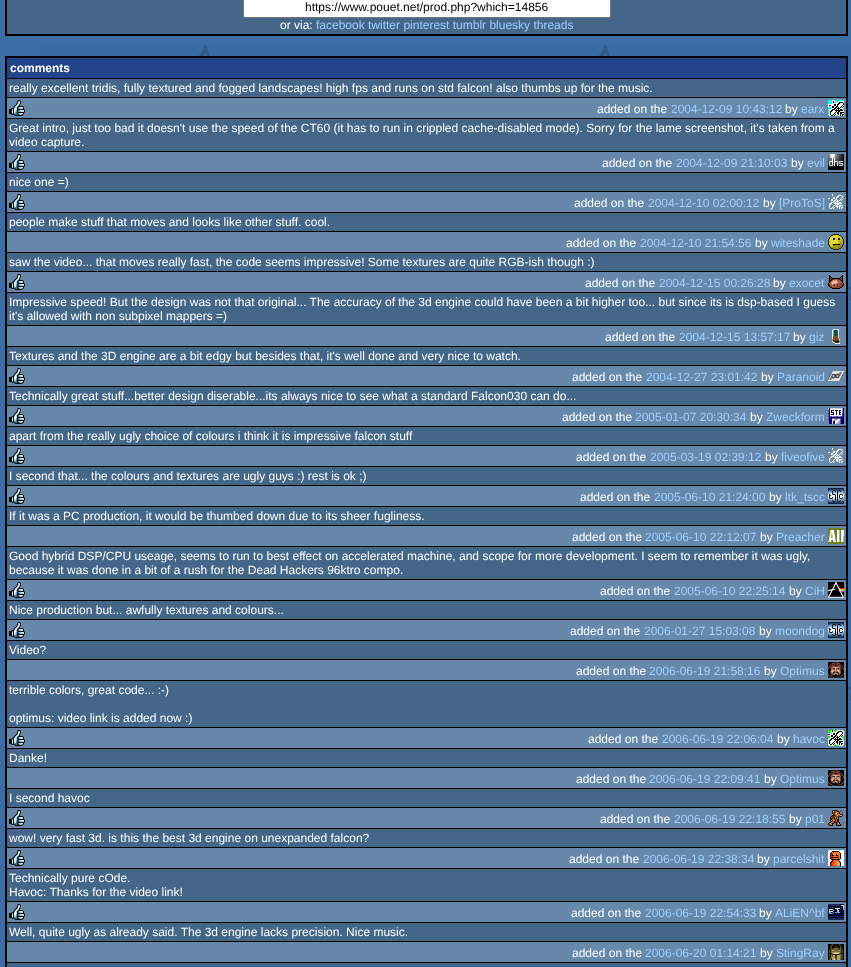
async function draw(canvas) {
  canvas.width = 851;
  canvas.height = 967;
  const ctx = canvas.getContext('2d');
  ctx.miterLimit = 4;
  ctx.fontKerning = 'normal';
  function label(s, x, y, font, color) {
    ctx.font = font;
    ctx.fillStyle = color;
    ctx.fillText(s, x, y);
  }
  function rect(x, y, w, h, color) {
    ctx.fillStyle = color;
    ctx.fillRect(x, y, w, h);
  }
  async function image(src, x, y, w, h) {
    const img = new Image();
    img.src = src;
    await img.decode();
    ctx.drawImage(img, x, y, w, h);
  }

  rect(0, 0, 851, 967, '#3a6ea5');
  await image('assets/img1.png', 41, 44, 810, 858);
  rect(5, 0, 843, 36, '#000');
  rect(7, 0, 839, 34, '#468');
  ctx.fillStyle = '#fff';
  ctx.beginPath();
  ctx.roundRect(243.5, -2.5, 367, 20, 1.5);
  ctx.fill();
  ctx.strokeStyle = '#767676';
  ctx.stroke();
  label('https://www.pouet.net/prod.php?which=14856', 305, 11, '12px Liberation Sans', '#000');
  label('or via:', 280, 29, '12px Liberation Sans', '#fff');
  label('facebook twitter pinterest tumblr bluesky threads', 316, 29, '12px Liberation Sans', '#9fcfff');
  rect(5, 56, 843, 911, '#000');
  rect(7, 58, 839, 20, '#248');
  label('comments', 10, 72, 'bold 12px Liberation Sans', '#fff');
  rect(7, 79, 839, 18, '#468');
  label('really excellent tridis, fully textured and fogged landscapes! high fps and runs on std falcon! also thumbs up for the music.', 9, 92, '12px Liberation Sans', '#fff');
  rect(7, 98, 839, 20, '#68a');
  await image('assets/img2.png', 9, 100, 16, 16);
  label('added on the', 597, 113, '12px Liberation Sans', '#fff');
  label('2004-12-09 10:43:12', 671, 113, '12px Liberation Sans', '#9fcfff');
  label('by', 785, 113, '12px Liberation Sans', '#fff');
  label('earx', 801, 113, '12px Liberation Sans', '#9fcfff');
  await image('assets/img3.png', 828, 100, 16, 16);
  rect(7, 119, 839, 32, '#468');
  label('Great intro, just too bad it doesn\'t use the speed of the CT60 (it has to run in crippled cache-disabled mode). Sorry for the lame screenshot, it\'s taken from a', 9, 132, '12px Liberation Sans', '#fff');
  label('video capture.', 9, 146, '12px Liberation Sans', '#fff');
  rect(7, 152, 839, 20, '#68a');
  await image('assets/img2.png', 9, 154, 16, 16);
  label('added on the', 602, 167, '12px Liberation Sans', '#fff');
  label('2004-12-09 21:10:03', 676, 167, '12px Liberation Sans', '#9fcfff');
  label('by', 791, 167, '12px Liberation Sans', '#fff');
  label('evil', 807, 167, '12px Liberation Sans', '#9fcfff');
  await image('assets/img4.png', 828, 154, 16, 16);
  rect(7, 173, 839, 18, '#468');
  label('nice one =)', 9, 186, '12px Liberation Sans', '#fff');
  rect(7, 192, 839, 20, '#68a');
  await image('assets/img2.png', 9, 194, 16, 16);
  label('added on the', 574, 207, '12px Liberation Sans', '#fff');
  label('2004-12-10 02:00:12', 648, 207, '12px Liberation Sans', '#9fcfff');
  label('by', 763, 207, '12px Liberation Sans', '#fff');
  label('[ProToS]', 779, 207, '12px Liberation Sans', '#9fcfff');
  await image('assets/img5.png', 828, 194, 15, 15);
  rect(7, 213, 839, 18, '#468');
  label('people make stuff that moves and looks like other stuff. cool.', 9, 226, '12px Liberation Sans', '#fff');
  rect(7, 232, 839, 20, '#68a');
  label('added on the', 566, 247, '12px Liberation Sans', '#fff');
  label('2004-12-10 21:54:56', 640, 247, '12px Liberation Sans', '#9fcfff');
  label('by', 755, 247, '12px Liberation Sans', '#fff');
  label('witeshade', 771, 247, '12px Liberation Sans', '#9fcfff');
  await image('assets/img6.png', 828, 234, 16, 16);
  rect(7, 253, 839, 18, '#468');
  label('saw the video... that moves really fast, the code seems impressive! Some textures are quite RGB-ish though :)', 9, 266, '12px Liberation Sans', '#fff');
  rect(7, 272, 839, 20, '#68a');
  await image('assets/img2.png', 9, 274, 16, 16);
  label('added on the', 585, 287, '12px Liberation Sans', '#fff');
  label('2004-12-15 00:26:28', 659, 287, '12px Liberation Sans', '#9fcfff');
  label('by', 773, 287, '12px Liberation Sans', '#fff');
  label('exocet', 789, 287, '12px Liberation Sans', '#9fcfff');
  await image('assets/img7.png', 828, 275, 16, 14);
  rect(7, 293, 839, 32, '#468');
  label('Impressive speed! But the design was not that original... The accuracy of the 3d engine could have been a bit higher too... but since its is dsp-based I guess', 9, 306, '12px Liberation Sans', '#fff');
  label('it\'s allowed with non subpixel mappers =)', 9, 320, '12px Liberation Sans', '#fff');
  rect(7, 326, 839, 20, '#68a');
  label('added on the', 605, 341, '12px Liberation Sans', '#fff');
  label('2004-12-15 13:57:17', 679, 341, '12px Liberation Sans', '#9fcfff');
  label('by', 793, 341, '12px Liberation Sans', '#fff');
  label('giz', 809, 341, '12px Liberation Sans', '#9fcfff');
  await image('assets/img8.png', 832, 329, 8, 15);
  rect(7, 347, 839, 18, '#468');
  label('Textures and the 3D engine are a bit edgy but besides that, it\'s well done and very nice to watch.', 9, 360, '12px Liberation Sans', '#fff');
  rect(7, 366, 839, 20, '#68a');
  await image('assets/img2.png', 9, 368, 16, 16);
  label('added on the', 572, 381, '12px Liberation Sans', '#fff');
  label('2004-12-27 23:01:42', 646, 381, '12px Liberation Sans', '#9fcfff');
  label('by', 761, 381, '12px Liberation Sans', '#fff');
  label('Paranoid', 777, 381, '12px Liberation Sans', '#9fcfff');
  await image('assets/img9.png', 828, 371, 16, 10);
  rect(7, 387, 839, 18, '#468');
  label('Technically great stuff...better design diserable...its always nice to see what a standard Falcon030 can do...', 9, 400, '12px Liberation Sans', '#fff');
  rect(7, 406, 839, 20, '#68a');
  await image('assets/img2.png', 9, 408, 16, 16);
  label('added on the', 562, 421, '12px Liberation Sans', '#fff');
  label('2005-01-07 20:30:34', 635, 421, '12px Liberation Sans', '#9fcfff');
  label('by', 750, 421, '12px Liberation Sans', '#fff');
  label('Zweckform', 766, 421, '12px Liberation Sans', '#9fcfff');
  await image('assets/img10.png', 828, 408, 16, 16);
  rect(7, 427, 839, 18, '#468');
  label('apart from the really ugly choice of colours i think it is impressive falcon stuff', 9, 440, '12px Liberation Sans', '#fff');
  rect(7, 446, 839, 20, '#68a');
  await image('assets/img2.png', 9, 448, 16, 16);
  label('added on the', 576, 461, '12px Liberation Sans', '#fff');
  label('2005-03-19 02:39:12', 650, 461, '12px Liberation Sans', '#9fcfff');
  label('by', 765, 461, '12px Liberation Sans', '#fff');
  label('fiveofive', 781, 461, '12px Liberation Sans', '#9fcfff');
  await image('assets/img5.png', 828, 448, 15, 15);
  rect(7, 467, 839, 18, '#468');
  label('I second that... the colours and textures are ugly guys :) rest is ok ;)', 9, 480, '12px Liberation Sans', '#fff');
  rect(7, 486, 839, 20, '#68a');
  await image('assets/img2.png', 9, 488, 16, 16);
  label('added on the', 580, 501, '12px Liberation Sans', '#fff');
  label('2005-06-10 21:24:00', 654, 501, '12px Liberation Sans', '#9fcfff');
  label('by', 769, 501, '12px Liberation Sans', '#fff');
  label('ltk_tscc', 785, 501, '12px Liberation Sans', '#9fcfff');
  await image('assets/img11.png', 828, 488, 16, 16);
  rect(7, 507, 839, 18, '#468');
  label('If it was a PC production, it would be thumbed down due to its sheer fugliness.', 9, 520, '12px Liberation Sans', '#fff');
  rect(7, 526, 839, 20, '#68a');
  label('added on the', 572, 541, '12px Liberation Sans', '#fff');
  label('2005-06-10 22:12:07', 645, 541, '12px Liberation Sans', '#9fcfff');
  label('by', 760, 541, '12px Liberation Sans', '#fff');
  label('Preacher', 776, 541, '12px Liberation Sans', '#9fcfff');
  await image('assets/img12.png', 828, 528, 16, 16);
  rect(7, 547, 839, 32, '#468');
  label('Good hybrid DSP/CPU useage, seems to run to best effect on accelerated machine, and scope for more development. I seem to remember it was ugly,', 9, 560, '12px Liberation Sans', '#fff');
  label('because it was done in a bit of a rush for the Dead Hackers 96ktro compo.', 9, 574, '12px Liberation Sans', '#fff');
  rect(7, 580, 839, 20, '#68a');
  await image('assets/img2.png', 9, 582, 16, 16);
  label('added on the', 600, 595, '12px Liberation Sans', '#fff');
  label('2005-06-10 22:25:14', 674, 595, '12px Liberation Sans', '#9fcfff');
  label('by', 789, 595, '12px Liberation Sans', '#fff');
  label('CiH', 805, 595, '12px Liberation Sans', '#9fcfff');
  await image('assets/img13.png', 828, 582, 16, 16);
  rect(7, 601, 839, 18, '#468');
  label('Nice production but... awfully textures and colours...', 9, 614, '12px Liberation Sans', '#fff');
  rect(7, 620, 839, 20, '#68a');
  await image('assets/img2.png', 9, 622, 16, 16);
  label('added on the', 570, 635, '12px Liberation Sans', '#fff');
  label('2006-01-27 15:03:08', 644, 635, '12px Liberation Sans', '#9fcfff');
  label('by', 759, 635, '12px Liberation Sans', '#fff');
  label('moondog', 775, 635, '12px Liberation Sans', '#9fcfff');
  await image('assets/img11.png', 828, 622, 16, 16);
  rect(7, 641, 839, 18, '#468');
  label('Video?', 9, 654, '12px Liberation Sans', '#fff');
  rect(7, 660, 839, 20, '#68a');
  label('added on the', 576, 675, '12px Liberation Sans', '#fff');
  label('2006-06-19 21:58:16', 649, 675, '12px Liberation Sans', '#9fcfff');
  label('by', 764, 675, '12px Liberation Sans', '#fff');
  label('Optimus', 780, 675, '12px Liberation Sans', '#9fcfff');
  await image('assets/img14.png', 828, 662, 16, 16);
  rect(7, 681, 839, 46, '#468');
  label('terrible colors, great code... :-)', 9, 694, '12px Liberation Sans', '#fff');
  label('optimus: video link is added now :)', 9, 722, '12px Liberation Sans', '#fff');
  rect(7, 728, 839, 20, '#68a');
  await image('assets/img2.png', 9, 730, 16, 16);
  label('added on the', 588, 743, '12px Liberation Sans', '#fff');
  label('2006-06-19 22:06:04', 662, 743, '12px Liberation Sans', '#9fcfff');
  label('by', 777, 743, '12px Liberation Sans', '#fff');
  label('havoc', 793, 743, '12px Liberation Sans', '#9fcfff');
  await image('assets/img15.png', 828, 730, 16, 16);
  rect(7, 749, 839, 18, '#468');
  label('Danke!', 9, 762, '12px Liberation Sans', '#fff');
  rect(7, 768, 839, 20, '#68a');
  label('added on the', 576, 783, '12px Liberation Sans', '#fff');
  label('2006-06-19 22:09:41', 649, 783, '12px Liberation Sans', '#9fcfff');
  label('by', 764, 783, '12px Liberation Sans', '#fff');
  label('Optimus', 780, 783, '12px Liberation Sans', '#9fcfff');
  await image('assets/img14.png', 828, 770, 16, 16);
  rect(7, 789, 839, 18, '#468');
  label('I second havoc', 9, 802, '12px Liberation Sans', '#fff');
  rect(7, 808, 839, 20, '#68a');
  await image('assets/img2.png', 9, 810, 16, 16);
  label('added on the', 600, 823, '12px Liberation Sans', '#fff');
  label('2006-06-19 22:18:55', 674, 823, '12px Liberation Sans', '#9fcfff');
  label('by', 789, 823, '12px Liberation Sans', '#fff');
  label('p01', 805, 823, '12px Liberation Sans', '#9fcfff');
  await image('assets/img16.png', 828, 810, 16, 16);
  rect(7, 829, 839, 18, '#468');
  label('wow! very fast 3d. is this the best 3d engine on unexpanded falcon?', 9, 842, '12px Liberation Sans', '#fff');
  rect(7, 848, 839, 20, '#68a');
  await image('assets/img2.png', 9, 850, 16, 16);
  label('added on the', 569, 863, '12px Liberation Sans', '#fff');
  label('2006-06-19 22:38:34', 643, 863, '12px Liberation Sans', '#9fcfff');
  label('by', 757, 863, '12px Liberation Sans', '#fff');
  label('parcelshit', 773, 863, '12px Liberation Sans', '#9fcfff');
  await image('assets/img17.png', 828, 850, 16, 16);
  rect(7, 869, 839, 32, '#468');
  label('Technically pure cOde.', 9, 882, '12px Liberation Sans', '#fff');
  label('Havoc: Thanks for the video link!', 9, 896, '12px Liberation Sans', '#fff');
  rect(7, 902, 839, 20, '#68a');
  await image('assets/img2.png', 9, 904, 16, 16);
  label('added on the', 571, 917, '12px Liberation Sans', '#fff');
  label('2006-06-19 22:54:33', 645, 917, '12px Liberation Sans', '#9fcfff');
  label('by', 759, 917, '12px Liberation Sans', '#fff');
  label('ALiEN^bf', 775, 917, '12px Liberation Sans', '#9fcfff');
  await image('assets/img18.png', 828, 904, 16, 16);
  rect(7, 923, 839, 18, '#468');
  label('Well, quite ugly as already said. The 3d engine lacks precision. Nice music.', 9, 936, '12px Liberation Sans', '#fff');
  rect(7, 942, 839, 20, '#68a');
  label('added on the', 572, 957, '12px Liberation Sans', '#fff');
  label('2006-06-20 01:14:21', 645, 957, '12px Liberation Sans', '#9fcfff');
  label('by', 760, 957, '12px Liberation Sans', '#fff');
  label('StingRay', 776, 957, '12px Liberation Sans', '#9fcfff');
  await image('assets/img19.png', 828, 944, 16, 16);
  rect(7, 963, 839, 4, '#468');
}

draw(document.querySelector('canvas'));
